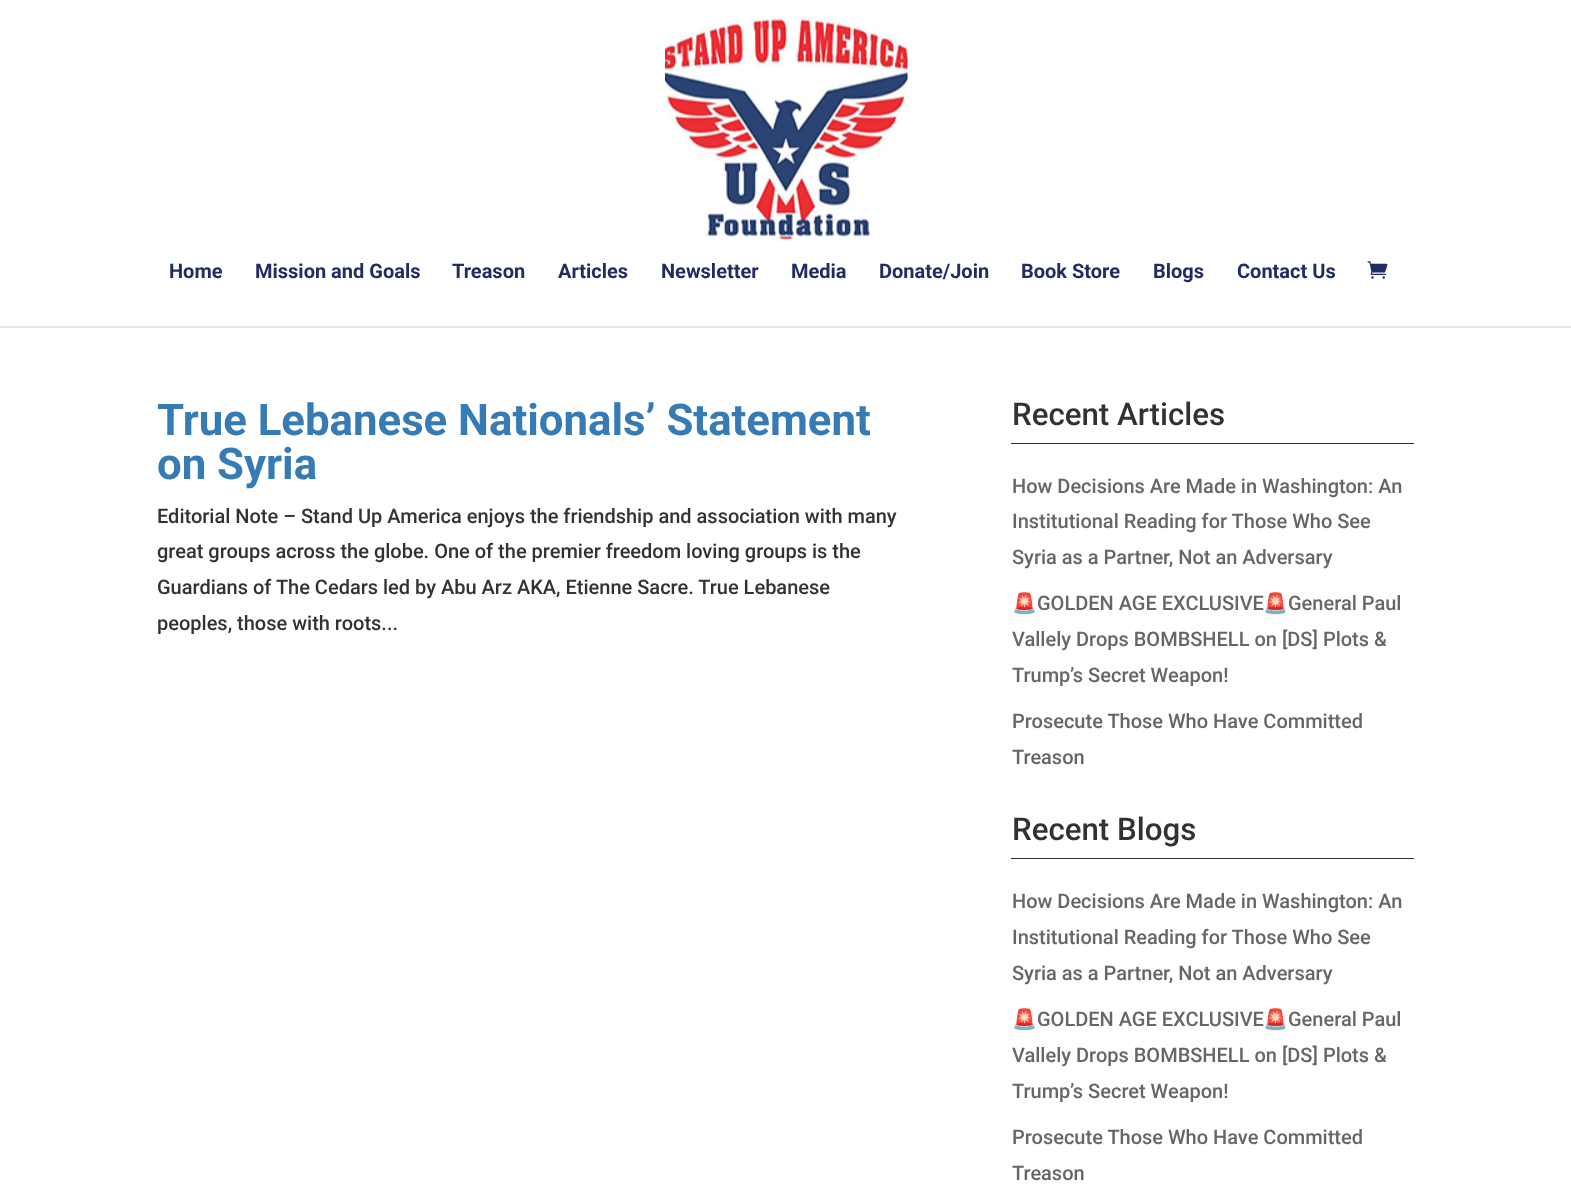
async function draw(canvas) {
  canvas.width = 1571;
  canvas.height = 1192;
  const ctx = canvas.getContext('2d');
  ctx.miterLimit = 4;
  ctx.fontKerning = 'normal';
  function label(s, x, y, font, color) {
    ctx.font = font;
    ctx.fillStyle = color;
    ctx.fillText(s, x, y);
  }
  function rect(x, y, w, h, color) {
    ctx.fillStyle = color;
    ctx.fillRect(x, y, w, h);
  }
  async function image(src, x, y, w, h) {
    const img = new Image();
    img.src = src;
    await img.decode();
    ctx.drawImage(img, x, y, w, h);
  }

  rect(0, 0, 1571, 1192, '#fff');
  rect(0, 326, 1571, 2, '#e6e6e6');
  await image('assets/img1.png', 665, 18, 243, 222);
  label('Home', 169, 278, 'bold 20px Roboto', '#212c62');
  label('Mission and Goals', 255, 278, 'bold 20px Roboto', '#212c62');
  label('Treason', 452, 278, 'bold 20px Roboto', '#212c62');
  label('Articles', 558, 278, 'bold 20px Roboto', '#212c62');
  label('Newsletter', 661, 278, 'bold 20px Roboto', '#212c62');
  label('Media', 791, 278, 'bold 20px Roboto', '#212c62');
  label('Donate/Join', 879, 278, 'bold 20px Roboto', '#212c62');
  label('Book Store', 1021, 278, 'bold 20px Roboto', '#212c62');
  label('Blogs', 1153, 278, 'bold 20px Roboto', '#212c62');
  label('Contact Us', 1237, 278, 'bold 20px Roboto', '#212c62');
  await image('assets/img2.png', 1367, 261, 21, 18);
  label('True Lebanese Nationals’ Statement', 157, 435, 'bold 43.75px Roboto', '#377bb5');
  label('on Syria', 157, 479, 'bold 43.75px Roboto', '#377bb5');
  label('Editorial Note – Stand Up America enjoys the friendship and association with many', 157, 523, '500 20px Roboto', '#323232');
  label('great groups across the globe. One of the premier freedom loving groups is the', 157, 558, '500 20px Roboto', '#323232');
  label('Guardians of The Cedars led by Abu Arz AKA, Etienne Sacre. True Lebanese', 157, 594, '500 20px Roboto', '#323232');
  label('peoples, those with roots...', 157, 630, '500 20px Roboto', '#323232');
  rect(1011, 443, 403, 1, '#323232');
  label('Recent Articles', 1012, 425, '500 31.25px Roboto', '#323232');
  label('How Decisions Are Made in Washington: An', 1012, 493, '500 20px Roboto', '#666');
  label('Institutional Reading for Those Who See', 1012, 528, '500 20px Roboto', '#666');
  label('Syria as a Partner, Not an Adversary', 1012, 564, '500 20px Roboto', '#666');
  label('🚨', 1012, 610, '20px Noto Color Emoji', '#666');
  label('GOLDEN AGE EXCLUSIVE', 1037, 610, '500 20px Roboto', '#666');
  label('🚨', 1263, 610, '20px Noto Color Emoji', '#666');
  label('General Paul', 1288, 610, '500 20px Roboto', '#666');
  label('Vallely Drops BOMBSHELL on [DS] Plots &', 1012, 646, '500 20px Roboto', '#666');
  label('Trump’s Secret Weapon!', 1012, 682, '500 20px Roboto', '#666');
  label('Prosecute Those Who Have Committed', 1012, 728, '500 20px Roboto', '#666');
  label('Treason', 1012, 764, '500 20px Roboto', '#666');
  rect(1011, 858, 403, 1, '#323232');
  label('Recent Blogs', 1012, 840, '500 31.25px Roboto', '#323232');
  label('How Decisions Are Made in Washington: An', 1012, 908, '500 20px Roboto', '#666');
  label('Institutional Reading for Those Who See', 1012, 944, '500 20px Roboto', '#666');
  label('Syria as a Partner, Not an Adversary', 1012, 980, '500 20px Roboto', '#666');
  label('🚨', 1012, 1026, '20px Noto Color Emoji', '#666');
  label('GOLDEN AGE EXCLUSIVE', 1037, 1026, '500 20px Roboto', '#666');
  label('🚨', 1263, 1026, '20px Noto Color Emoji', '#666');
  label('General Paul', 1288, 1026, '500 20px Roboto', '#666');
  label('Vallely Drops BOMBSHELL on [DS] Plots &', 1012, 1062, '500 20px Roboto', '#666');
  label('Trump’s Secret Weapon!', 1012, 1098, '500 20px Roboto', '#666');
  label('Prosecute Those Who Have Committed', 1012, 1144, '500 20px Roboto', '#666');
  label('Treason', 1012, 1180, '500 20px Roboto', '#666');
}

draw(document.querySelector('canvas'));
